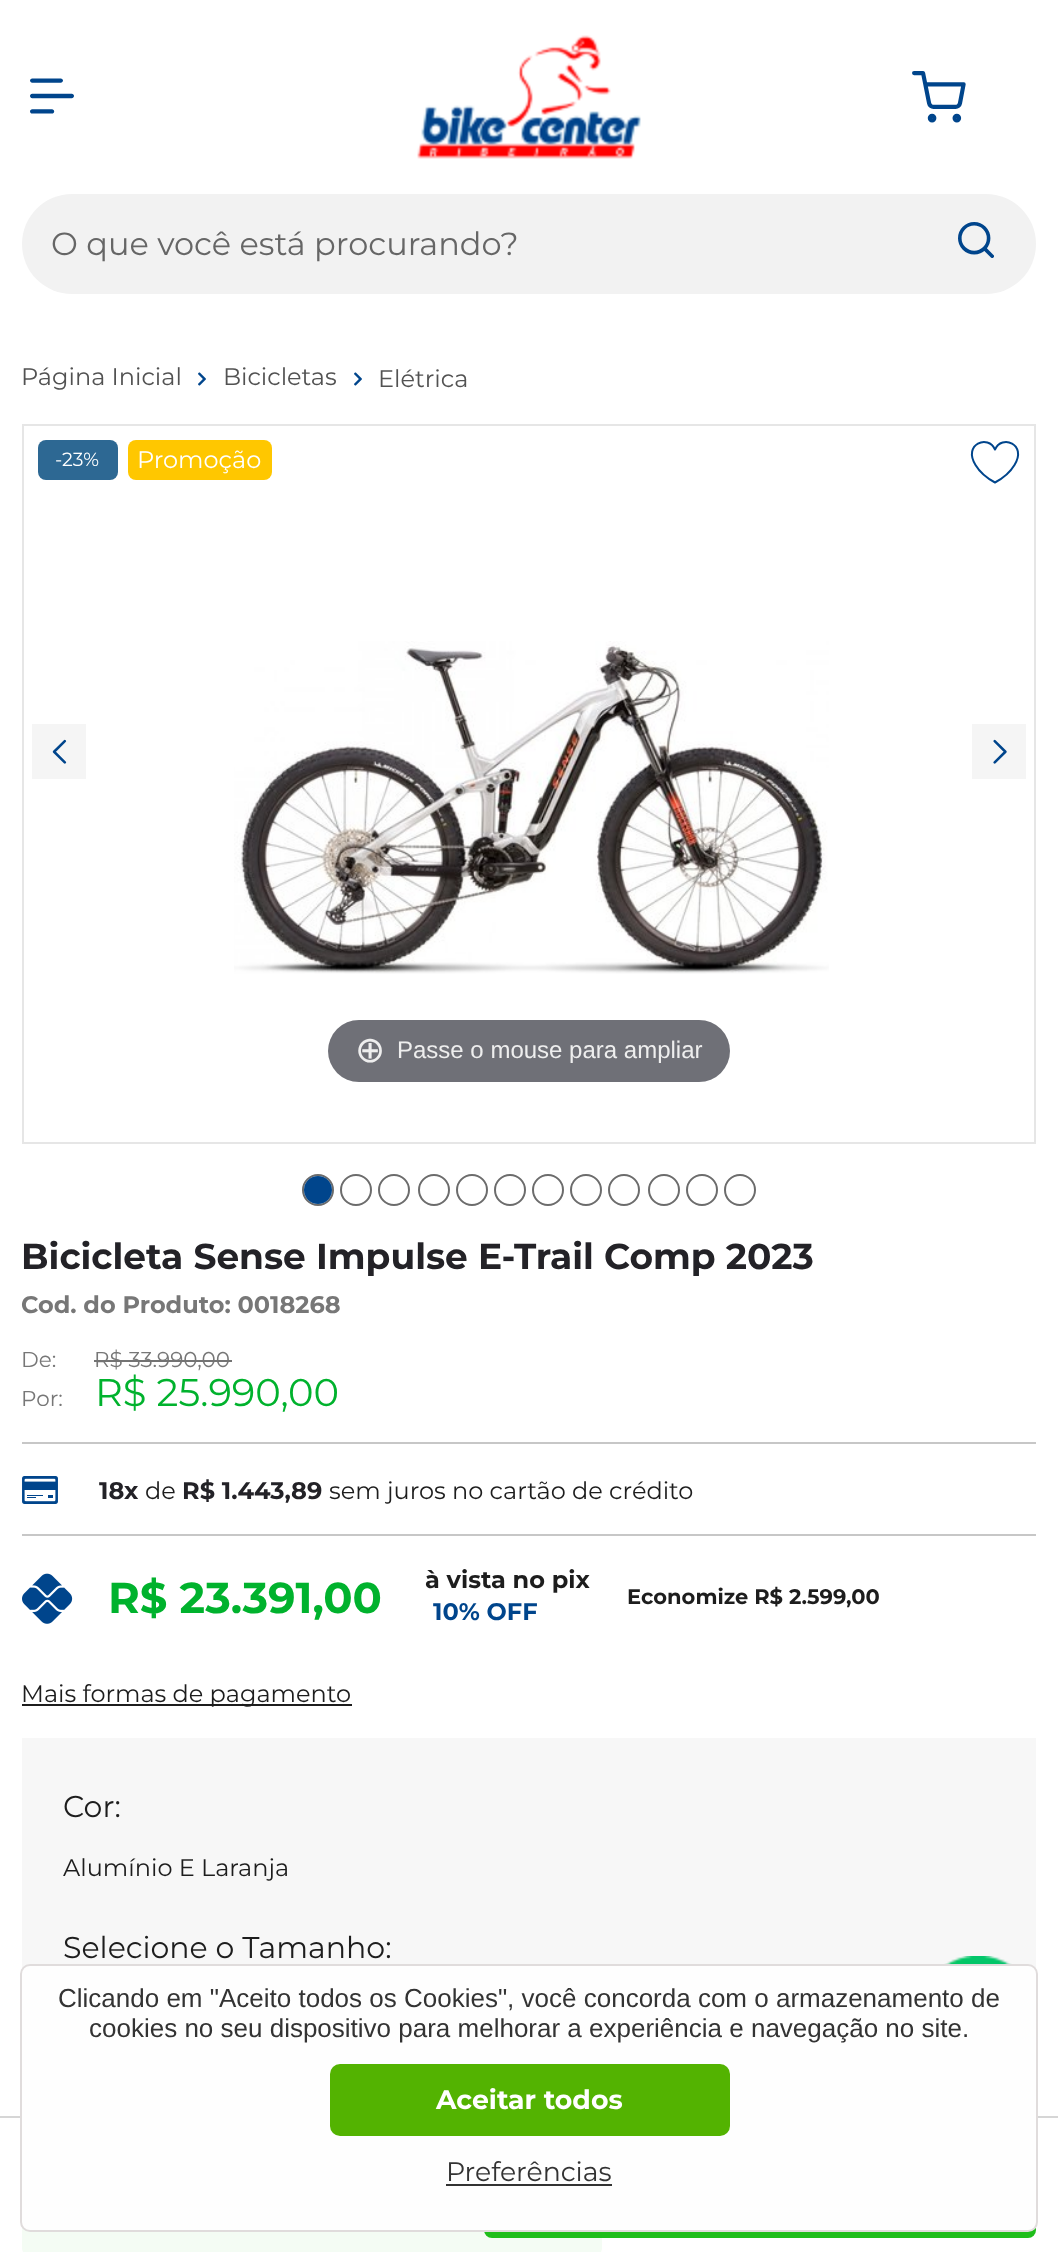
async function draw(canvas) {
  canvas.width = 1058;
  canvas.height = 2252;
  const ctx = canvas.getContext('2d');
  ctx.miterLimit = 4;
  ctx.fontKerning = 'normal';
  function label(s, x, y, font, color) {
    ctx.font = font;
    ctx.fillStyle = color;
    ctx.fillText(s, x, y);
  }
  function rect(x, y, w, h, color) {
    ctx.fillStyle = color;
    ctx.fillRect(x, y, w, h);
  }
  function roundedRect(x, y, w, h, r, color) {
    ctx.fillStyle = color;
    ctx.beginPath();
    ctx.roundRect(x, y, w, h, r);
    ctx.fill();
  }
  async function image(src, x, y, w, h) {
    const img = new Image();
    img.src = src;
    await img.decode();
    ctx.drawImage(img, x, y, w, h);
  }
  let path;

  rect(0, 0, 1058, 2252, '#fff');
  await image('assets/img1.png', 30, 78, 44, 36);
  await image('assets/img2.png', 417, 35, 224, 124);
  await image('assets/img3.png', 912, 71, 54, 52);
  roundedRect(22, 194, 1014, 100, 50, '#f2f2f2');
  label('O que você está procurando?', 51, 255, '32px Montserrat', '#666');
  await image('assets/img4.png', 958, 222, 36, 36);
  label('Página Inicial', 21, 385, '24px Montserrat', '#525252');
  await image('assets/img5.png', 198, 372, 8, 14);
  label('Bicicletas', 223, 385, '24px Montserrat', '#525252');
  await image('assets/img5.png', 354, 372, 8, 14);
  label('Elétrica', 378, 387, '24px Montserrat', '#525252');
  ctx.strokeStyle = '#e6e6e6';
  ctx.lineWidth = 2;
  ctx.strokeRect(23, 425, 1012, 718);
  roundedRect(38, 440, 80, 40, 8, '#2d6893');
  label('-23%', 55, 466, '19px Montserrat', '#fff');
  roundedRect(128, 440, 144, 40, 8, '#ffc700');
  label('Promoção', 137, 468, '24px Montserrat', '#fff');
  path = new Path2D('M995 482.5C987.5 478.5 980 472.5 975.5 465C962.5 444 988.5 434 995 449.5C1001.5 434 1027.5 444 1014.5 465C1010 472.5 1002.5 478.5 995 482.5Z');
  ctx.strokeStyle = '#00458c';
  ctx.lineCap = 'round';
  ctx.lineJoin = 'round';
  ctx.stroke(path);
  await image('assets/img6.png', 234, 641, 595, 333);
  roundedRect(328, 1020, 402, 62, 31, '#6f7077');
  label('⊕', 355, 1062, '36px DejaVu Sans', '#eee');
  label('Passe o mouse para ampliar', 397, 1058, '24px Liberation Sans', '#eee');
  await image('assets/img7.png', 32, 724, 54, 55);
  await image('assets/img8.png', 972, 724, 54, 55);
  ctx.beginPath();
  ctx.arc(318, 1190, 15, 0, 2 * Math.PI);
  ctx.strokeStyle = '#6c6c6c';
  ctx.stroke();
  ctx.fillStyle = '#00458c';
  ctx.beginPath();
  ctx.arc(318, 1190, 14, 0, 2 * Math.PI);
  ctx.fill();
  ctx.beginPath();
  ctx.arc(356, 1190, 15, 0, 2 * Math.PI);
  ctx.stroke();
  ctx.beginPath();
  ctx.arc(394, 1190, 15, 0, 2 * Math.PI);
  ctx.stroke();
  ctx.beginPath();
  ctx.arc(434, 1190, 15, 0, 2 * Math.PI);
  ctx.stroke();
  ctx.beginPath();
  ctx.arc(472, 1190, 15, 0, 2 * Math.PI);
  ctx.stroke();
  ctx.beginPath();
  ctx.arc(510, 1190, 15, 0, 2 * Math.PI);
  ctx.stroke();
  ctx.beginPath();
  ctx.arc(548, 1190, 15, 0, 2 * Math.PI);
  ctx.stroke();
  ctx.beginPath();
  ctx.arc(586, 1190, 15, 0, 2 * Math.PI);
  ctx.stroke();
  ctx.beginPath();
  ctx.arc(624, 1190, 15, 0, 2 * Math.PI);
  ctx.stroke();
  ctx.beginPath();
  ctx.arc(664, 1190, 15, 0, 2 * Math.PI);
  ctx.stroke();
  ctx.beginPath();
  ctx.arc(702, 1190, 15, 0, 2 * Math.PI);
  ctx.stroke();
  ctx.beginPath();
  ctx.arc(740, 1190, 15, 0, 2 * Math.PI);
  ctx.stroke();
  label('Bicicleta Sense Impulse E-Trail Comp 2023', 21, 1269, 'bold 36px Montserrat', '#232227');
  label('Cod. do Produto: 0018268', 21, 1313, 'bold 24px Montserrat', '#777');
  rect(22, 1442, 1014, 2, '#c7c7c7');
  label('De:', 21, 1367, '21.5px Montserrat', '#777');
  label('R$ 33.990,00', 94, 1367, '21.5px Montserrat', '#777');
  rect(94, 1360, 138, 2, '#737373');
  label('Por:', 21, 1406, '21.5px Montserrat', '#777');
  label('R$ 25.990,00', 95, 1406, '38.5px Montserrat', '#00b22d');
  await image('assets/img9.png', 22, 1476, 36, 28);
  label('18x', 99, 1499, 'bold 24px Montserrat', '#232227');
  label('de', 145, 1499, '24px Montserrat', '#1d1d1d');
  label('R$ 1.443,89', 182, 1499, 'bold 24px Montserrat', '#232227');
  label('sem juros no cartão de crédito', 329, 1499, '24px Montserrat', '#1d1d1d');
  rect(22, 1534, 1014, 2, '#c7c7c7');
  await image('assets/img10.png', 22, 1573, 51, 51);
  label('R$ 23.391,00', 108, 1613, 'bold 43.25px Montserrat', '#00b22d');
  label('à vista no pix', 425, 1588, 'bold 24px Montserrat', '#1d1d1d');
  label('10% OFF', 433, 1620, 'bold 24px Montserrat', '#00458c');
  label('Economize R$ 2.599,00', 627, 1604, 'bold 21px Montserrat', '#1d1d1d');
  rect(22, 1704, 330, 2, '#1d1d1d');
  label('Mais formas de pagamento', 21, 1702, '24px Montserrat', '#1d1d1d');
  rect(22, 1738, 1014, 230, '#f7f7f7');
  label('Cor:', 63, 1817, '30px Montserrat', '#1d1d1d');
  label('Alumínio E Laranja', 63, 1876, '24px Montserrat', '#1d1d1d');
  label('Selecione o Tamanho:', 63, 1958, '30px Montserrat', '#1d1d1d');
  roundedRect(22, 2132, 580, 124, 8, '#f4fcf4');
  await image('assets/img11.png', 944, 1956, 68, 8);
  rect(0, 2116, 1058, 2, '#d6d6d6');
  roundedRect(484, 2132, 552, 106, 8, '#1fbe1b');
  ctx.fillStyle = '#fefefe';
  ctx.beginPath();
  ctx.roundRect(21, 1965, 1016, 266, 9);
  ctx.fill();
  ctx.strokeStyle = '#e0dcdc';
  ctx.lineJoin = 'miter';
  ctx.stroke();
  label('Clicando em "Aceito todos os Cookies", você concorda com o armazenamento de', 58, 2007, '26px Liberation Sans', '#333');
  label('cookies no seu dispositivo para melhorar a experiência e navegação no site.', 89, 2037, '26px Liberation Sans', '#333');
  roundedRect(330, 2064, 400, 72, 10, '#53b301');
  label('Aceitar todos', 436, 2109, 'bold 26.75px Montserrat', '#fff');
  label('Preferências', 446, 2181, '26.75px Montserrat', '#333');
  rect(446, 2184, 166, 2, '#333');
}

draw(document.querySelector('canvas'));
